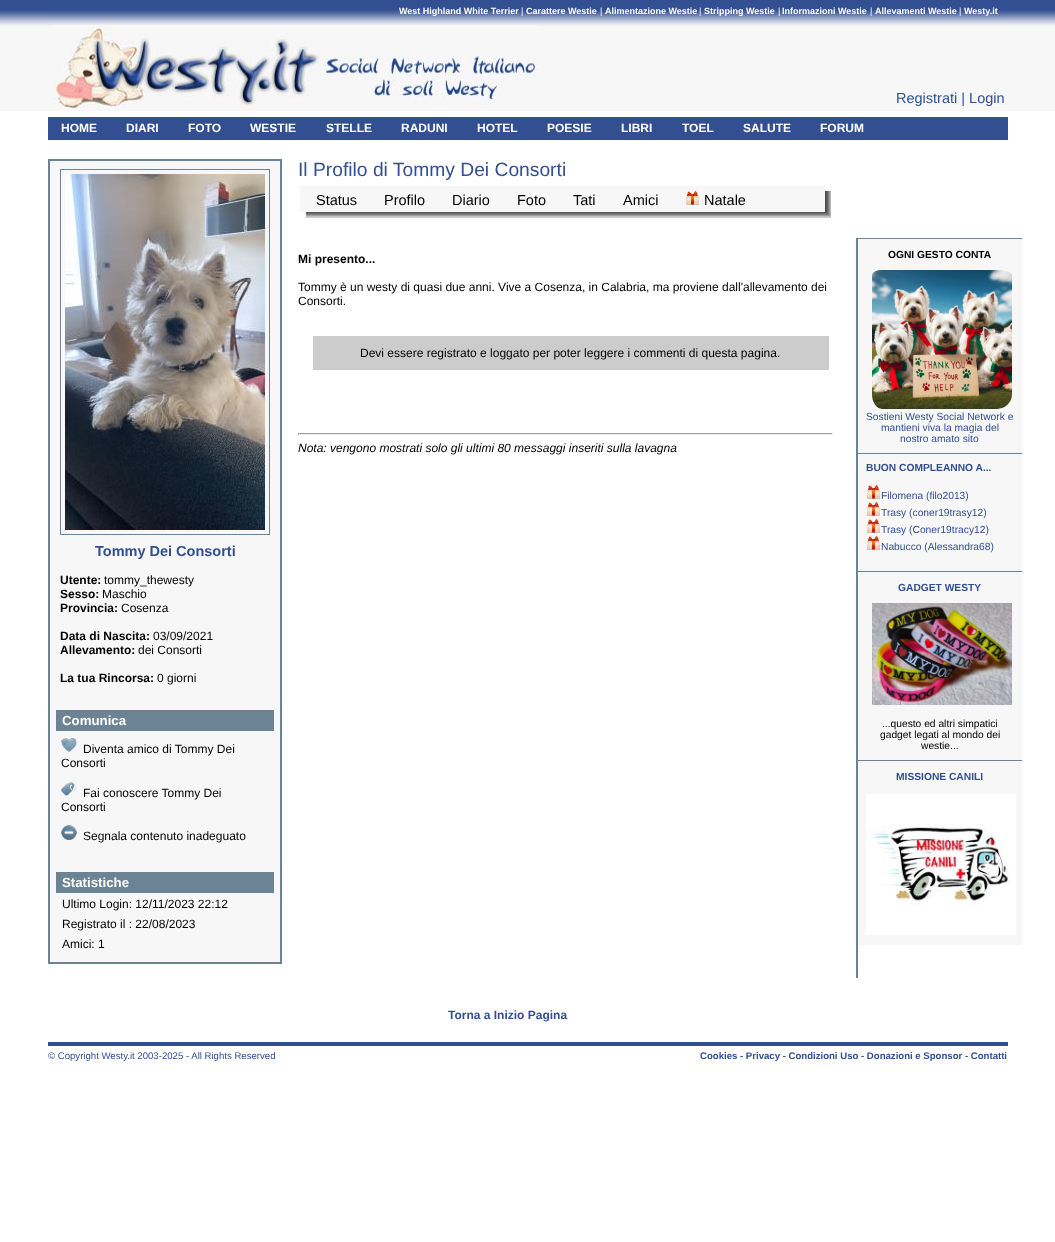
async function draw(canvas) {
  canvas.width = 1055;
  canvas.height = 1242;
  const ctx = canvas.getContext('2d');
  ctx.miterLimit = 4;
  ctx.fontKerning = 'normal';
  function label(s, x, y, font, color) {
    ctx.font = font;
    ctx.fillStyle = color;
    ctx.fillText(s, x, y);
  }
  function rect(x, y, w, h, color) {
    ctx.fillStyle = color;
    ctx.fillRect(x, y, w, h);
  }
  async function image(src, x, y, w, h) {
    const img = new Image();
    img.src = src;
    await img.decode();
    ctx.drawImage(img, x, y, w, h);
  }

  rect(0, 0, 1055, 1242, '#fff');
  await image('assets/img1.png', 0, 0, 1055, 111);
  await image('assets/img2.png', 48, 0, 960, 140);
  label('West Highland White Terrier', 399, 14, 'bold 9px Liberation Sans', '#fff');
  label('|', 521, 14, '9px Liberation Sans', '#fff');
  label('Carattere Westie', 526, 14, 'bold 9px Liberation Sans', '#fff');
  label('|', 600, 14, '9px Liberation Sans', '#fff');
  label('Alimentazione Westie', 605, 14, 'bold 9px Liberation Sans', '#fff');
  label('|', 699, 14, '9px Liberation Sans', '#fff');
  label('Stripping Westie', 704, 14, 'bold 9px Liberation Sans', '#fff');
  label('|', 778, 14, '9px Liberation Sans', '#fff');
  label('Informazioni Westie', 782, 14, 'bold 9px Liberation Sans', '#fff');
  label('|', 870, 14, '9px Liberation Sans', '#fff');
  label('Allevamenti Westie', 875, 14, 'bold 9px Liberation Sans', '#fff');
  label('|', 959, 14, '9px Liberation Sans', '#fff');
  label('Westy.it', 964, 14, 'bold 9px Liberation Sans', '#fff');
  await image('assets/img3.png', 53, 25, 485, 86);
  label('Registrati | Login', 896, 103, '14.5px Liberation Sans', '#324f92');
  label('HOME', 61, 132, 'bold 12px Liberation Sans', '#fff');
  label('DIARI', 126, 132, 'bold 12px Liberation Sans', '#fff');
  label('FOTO', 188, 132, 'bold 12px Liberation Sans', '#fff');
  label('WESTIE', 250, 132, 'bold 12px Liberation Sans', '#fff');
  label('STELLE', 326, 132, 'bold 12px Liberation Sans', '#fff');
  label('RADUNI', 401, 132, 'bold 12px Liberation Sans', '#fff');
  label('HOTEL', 477, 132, 'bold 12px Liberation Sans', '#fff');
  label('POESIE', 547, 132, 'bold 12px Liberation Sans', '#fff');
  label('LIBRI', 621, 132, 'bold 12px Liberation Sans', '#fff');
  label('TOEL', 682, 132, 'bold 12px Liberation Sans', '#fff');
  label('SALUTE', 743, 132, 'bold 12px Liberation Sans', '#fff');
  label('FORUM', 820, 132, 'bold 12px Liberation Sans', '#fff');
  label('Il Profilo di Tommy Dei Consorti', 298, 176, '19.25px Liberation Sans', '#324f92');
  await image('assets/img4.png', 306, 191, 525, 27);
  rect(300, 186, 525, 26, '#f7f7f7');
  label('Status', 316, 205, '14.5px Liberation Sans', '#000');
  label('Profilo', 384, 205, '14.5px Liberation Sans', '#000');
  label('Diario', 452, 205, '14.5px Liberation Sans', '#000');
  label('Foto', 517, 205, '14.5px Liberation Sans', '#000');
  label('Tati', 573, 205, '14.5px Liberation Sans', '#000');
  label('Amici', 623, 205, '14.5px Liberation Sans', '#000');
  await image('assets/img5.png', 686, 190, 13, 15);
  label('Natale', 704, 205, '14.5px Liberation Sans', '#000');
  label('Mi presento...', 298, 263, 'bold 12px Liberation Sans', '#000');
  label('Tommy è un westy di quasi due anni. Vive a Cosenza, in Calabria, ma proviene dall\'allevamento dei', 298, 291, '12px Liberation Sans', '#000');
  label('Consorti.', 298, 305, '12px Liberation Sans', '#000');
  rect(313, 336, 516, 34, '#ccc');
  label('Devi essere registrato e loggato per poter leggere i commenti di questa pagina.', 360, 357, '12px Liberation Sans', '#000');
  rect(298, 433, 535, 1, '#9f9f9f');
  rect(832, 433, 1, 2, '#eee');
  rect(298, 434, 535, 1, '#eee');
  rect(298, 433, 1, 2, '#9f9f9f');
  label('Nota: vengono mostrati solo gli ultimi 80 messaggi inseriti sulla lavagna', 298, 452, 'italic 12px Liberation Sans', '#000');
  rect(856, 238, 2, 740, '#6b8392');
  rect(858, 239, 164, 214, '#f7f7f7');
  rect(858, 238, 164, 1, '#6b8392');
  label('OGNI GESTO CONTA', 888, 258, 'bold 10.25px Liberation Sans', '#000');
  await image('assets/img6.png', 872, 270, 140, 139);
  label('Sostieni Westy Social Network e', 866, 420, '10.25px Liberation Sans', '#324f92');
  label('mantieni viva la magia del', 881, 431, '10.25px Liberation Sans', '#324f92');
  label('nostro amato sito', 900, 442, '10.25px Liberation Sans', '#324f92');
  rect(858, 454, 164, 117, '#f7f7f7');
  rect(858, 453, 164, 1, '#6b8392');
  label('BUON COMPLEANNO A...', 866, 471, 'bold 10.25px Liberation Sans', '#324f92');
  await image('assets/img5.png', 867, 484, 13, 15);
  label('Filomena (filo2013)', 881, 499, '10.25px Liberation Sans', '#324f92');
  await image('assets/img5.png', 867, 501, 13, 15);
  label('Trasy (coner19trasy12)', 881, 516, '10.25px Liberation Sans', '#324f92');
  await image('assets/img5.png', 867, 518, 13, 15);
  label('Trasy (Coner19tracy12)', 881, 533, '10.25px Liberation Sans', '#324f92');
  await image('assets/img5.png', 867, 535, 13, 15);
  label('Nabucco (Alessandra68)', 881, 550, '10.25px Liberation Sans', '#324f92');
  rect(858, 572, 164, 188, '#f7f7f7');
  rect(858, 571, 164, 1, '#6b8392');
  label('GADGET WESTY', 898, 591, 'bold 10.25px Liberation Sans', '#324f92');
  await image('assets/img7.png', 872, 603, 140, 102);
  label('...questo ed altri simpatici', 882, 727, '10.25px Liberation Sans', '#000');
  label('gadget legati al mondo dei', 880, 738, '10.25px Liberation Sans', '#000');
  label('westie...', 921, 749, '10.25px Liberation Sans', '#000');
  rect(858, 761, 164, 184, '#f7f7f7');
  rect(858, 760, 164, 1, '#6b8392');
  label('MISSIONE CANILI', 896, 780, 'bold 10.25px Liberation Sans', '#324f92');
  await image('assets/img8.png', 866, 794, 150, 141);
  ctx.fillStyle = '#f7f7f7';
  ctx.beginPath();
  ctx.rect(49, 160, 232, 803);
  ctx.fill();
  ctx.strokeStyle = '#6b8392';
  ctx.lineWidth = 2;
  ctx.stroke();
  ctx.lineWidth = 1;
  ctx.strokeRect(60.5, 169.5, 209, 365);
  await image('assets/img9.png', 65, 174, 200, 356);
  label('Tommy Dei Consorti', 95, 556, 'bold 14.5px Liberation Sans', '#324f92');
  label('Utente:', 60, 584, 'bold 12px Liberation Sans', '#000');
  label('tommy_thewesty', 104, 584, '12px Liberation Sans', '#000');
  label('Sesso:', 60, 598, 'bold 12px Liberation Sans', '#000');
  label('Maschio', 102, 598, '12px Liberation Sans', '#000');
  label('Provincia:', 60, 612, 'bold 12px Liberation Sans', '#000');
  label('Cosenza', 121, 612, '12px Liberation Sans', '#000');
  label('Data di Nascita:', 60, 640, 'bold 12px Liberation Sans', '#000');
  label('03/09/2021', 153, 640, '12px Liberation Sans', '#000');
  label('Allevamento:', 60, 654, 'bold 12px Liberation Sans', '#000');
  label('dei Consorti', 138, 654, '12px Liberation Sans', '#000');
  label('La tua Rincorsa:', 60, 682, 'bold 12px Liberation Sans', '#000');
  label('0 giorni', 157, 682, '12px Liberation Sans', '#000');
  rect(56, 710, 218, 21, '#6b8392');
  label('Comunica', 62, 725, 'bold 13.25px Liberation Sans', '#fff');
  await image('assets/img10.png', 61, 738, 16, 14);
  label('Diventa amico di Tommy Dei', 83, 753, '12px Liberation Sans', '#000');
  label('Consorti', 61, 767, '12px Liberation Sans', '#000');
  await image('assets/img11.png', 61, 782, 16, 14);
  label('Fai conoscere Tommy Dei', 83, 797, '12px Liberation Sans', '#000');
  label('Consorti', 61, 811, '12px Liberation Sans', '#000');
  await image('assets/img12.png', 61, 825, 16, 15);
  label('Segnala contenuto inadeguato', 83, 840, '12px Liberation Sans', '#000');
  rect(56, 872, 218, 21, '#6b8392');
  label('Statistiche', 62, 887, 'bold 13.25px Liberation Sans', '#fff');
  label('Ultimo Login: 12/11/2023 22:12', 62, 908, '12px Liberation Sans', '#000');
  label('Registrato il : 22/08/2023', 62, 928, '12px Liberation Sans', '#000');
  label('Amici: 1', 62, 948, '12px Liberation Sans', '#000');
  label('Torna a Inizio Pagina', 448, 1019, 'bold 12px Liberation Sans', '#324f92');
  rect(48, 1042, 960, 4, '#324f92');
  label('© Copyright Westy.it 2003-2025 - All Rights Reserved', 48, 1059, '9.6px Liberation Sans', '#324f92');
  label('Cookies - Privacy - Condizioni Uso - Donazioni e Sponsor - Contatti', 700, 1059, 'bold 9.6px Liberation Sans', '#324f92');
}

draw(document.querySelector('canvas'));
